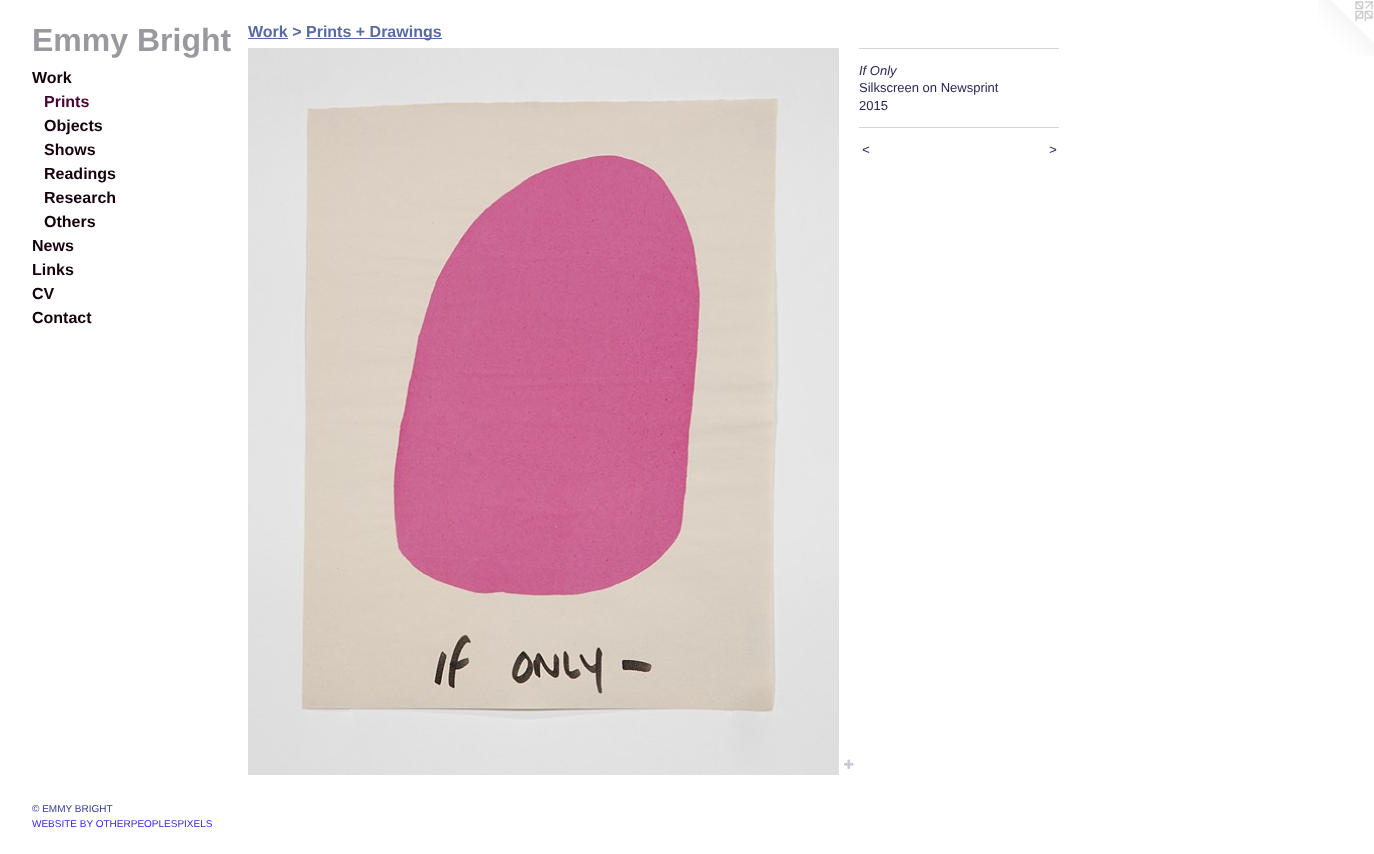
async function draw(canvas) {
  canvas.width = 1374;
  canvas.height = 854;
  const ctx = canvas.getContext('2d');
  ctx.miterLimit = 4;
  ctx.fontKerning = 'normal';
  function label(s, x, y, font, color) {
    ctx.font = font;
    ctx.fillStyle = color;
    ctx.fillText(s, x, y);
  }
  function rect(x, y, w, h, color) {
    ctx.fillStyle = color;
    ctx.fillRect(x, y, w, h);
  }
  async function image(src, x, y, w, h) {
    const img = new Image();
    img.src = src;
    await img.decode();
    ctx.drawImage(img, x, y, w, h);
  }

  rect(0, 0, 1374, 854, '#fff');
  label('Emmy Bright', 32, 51, 'bold 32px Liberation Sans', '#99999f');
  label('Work', 32, 83, 'bold 16px Liberation Sans', '#14010d');
  label('Prints', 44, 107, 'bold 16px Liberation Sans', '#45032d');
  label('Objects', 44, 131, 'bold 16px Liberation Sans', '#14010d');
  label('Shows', 44, 155, 'bold 16px Liberation Sans', '#14010d');
  label('Readings', 44, 179, 'bold 16px Liberation Sans', '#14010d');
  label('Research', 44, 203, 'bold 16px Liberation Sans', '#14010d');
  label('Others', 44, 227, 'bold 16px Liberation Sans', '#14010d');
  label('News', 32, 251, 'bold 16px Liberation Sans', '#14010d');
  label('Links', 32, 275, 'bold 16px Liberation Sans', '#14010d');
  label('CV', 32, 299, 'bold 16px Liberation Sans', '#14010d');
  label('Contact', 32, 323, 'bold 16px Liberation Sans', '#14010d');
  label('© EMMY BRIGHT', 32, 812, '10px Liberation Sans', '#31388c');
  label('WEBSITE BY OTHERPEOPLESPIXELS', 32, 827, '10px Liberation Sans', '#3726e3');
  label('Work >', 248, 37, 'bold 16px Liberation Sans', '#576ba2');
  rect(248, 38, 40, 1, '#576ba2');
  rect(306, 38, 136, 1, '#576ba2');
  label('Prints + Drawings', 306, 37, 'bold 16px Liberation Sans', '#576ba2');
  await image('assets/img1.png', 248, 48, 591, 727);
  await image('assets/img2.png', 844, 759, 10, 10);
  rect(859, 48, 200, 1, '#d4d4de');
  label('If Only', 859, 75, 'italic 13px Liberation Sans', '#292759');
  label('Silkscreen on Newsprint', 859, 92, '13px Liberation Sans', '#292759');
  label('2015', 859, 110, '13px Liberation Sans', '#292759');
  rect(859, 127, 200, 1, '#d4d4de');
  ctx.letterSpacing = '1px';
  label('<', 862, 154, 'italic 13px Liberation Sans', '#292759');
  label('>', 1049, 154, 'italic 13px Liberation Sans', '#292759');
  await image('assets/img3.png', 1318, 0, 56, 56);
}

draw(document.querySelector('canvas'));
